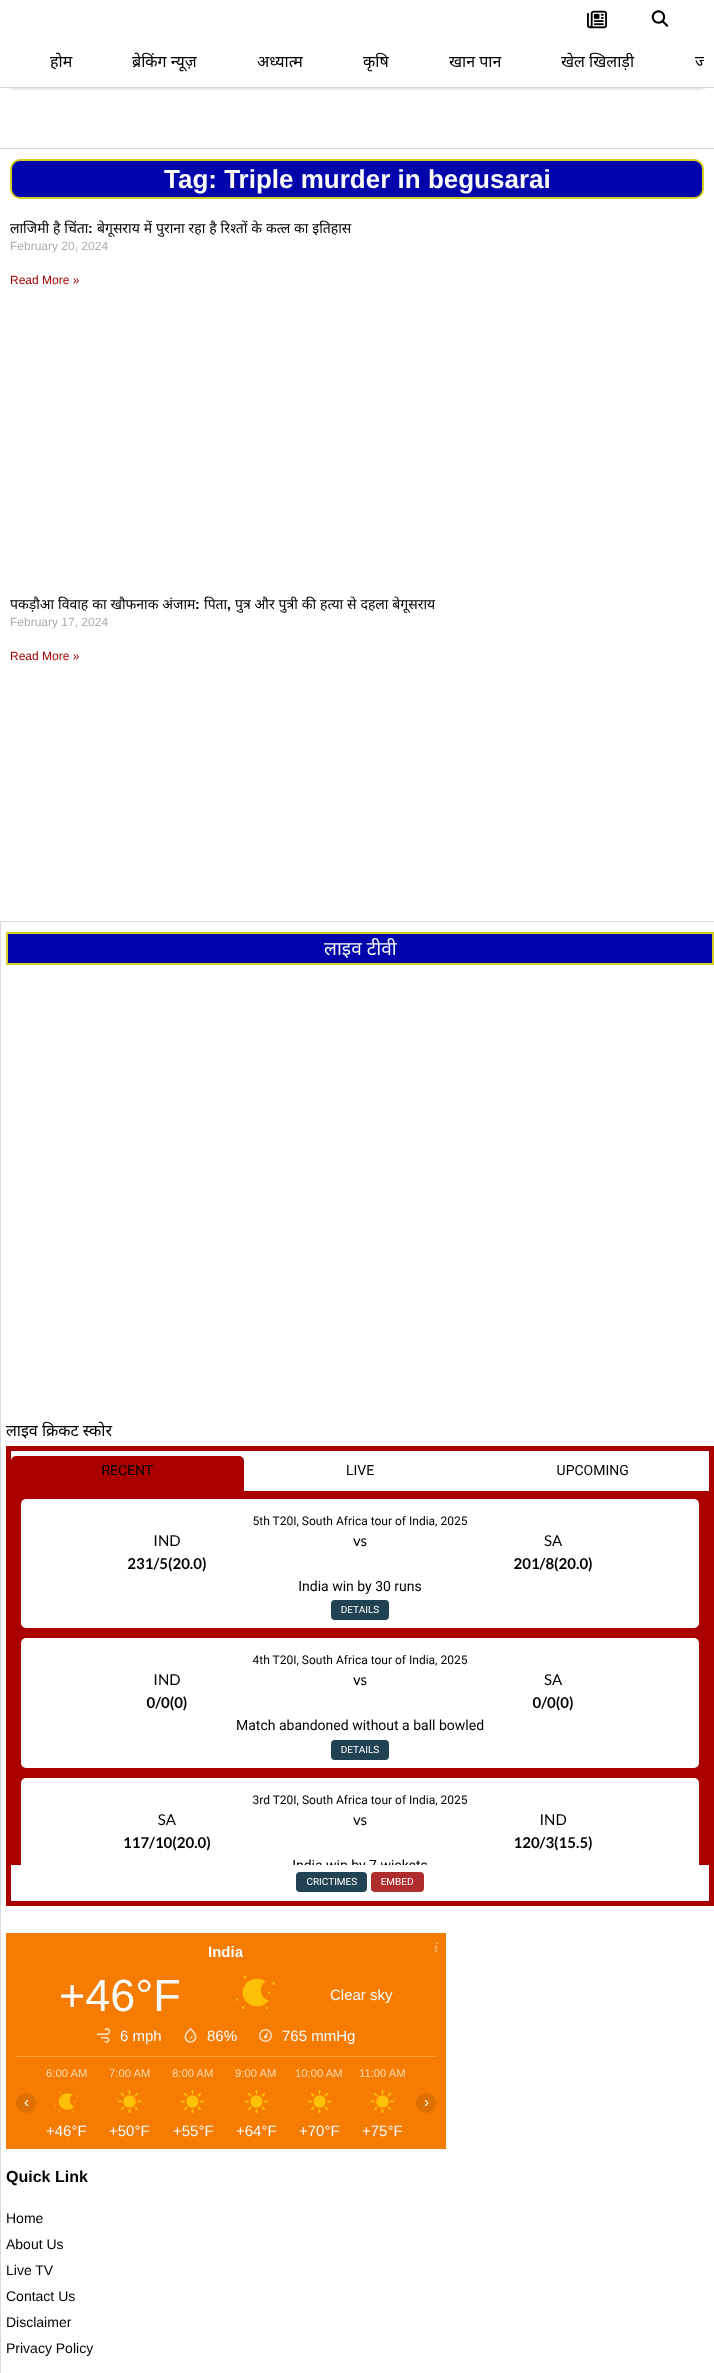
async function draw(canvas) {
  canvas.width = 714;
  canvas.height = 2373;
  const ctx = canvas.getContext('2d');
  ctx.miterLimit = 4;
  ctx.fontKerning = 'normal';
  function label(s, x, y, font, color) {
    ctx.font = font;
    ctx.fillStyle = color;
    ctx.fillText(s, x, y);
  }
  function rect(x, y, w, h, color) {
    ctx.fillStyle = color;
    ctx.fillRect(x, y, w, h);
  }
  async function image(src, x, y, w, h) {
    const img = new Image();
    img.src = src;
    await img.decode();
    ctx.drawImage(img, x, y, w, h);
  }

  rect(0, 0, 714, 2373, '#fff');
  await image('assets/img1.png', 587, 10, 20, 19);
  await image('assets/img2.png', 651, 10, 18, 17);
  ctx.save();
  ctx.beginPath();
  ctx.rect(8, 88, 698, 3);
  ctx.clip();
  ctx.fillStyle = '#0000003b';
  ctx.filter = 'blur(2.5px)';
  ctx.beginPath();
  ctx.rect(10, 57, 694, 31);
  ctx.fill();
  ctx.filter = 'none';
  ctx.restore();
  rect(0, 87, 714, 1, '#d9d5d5');
  label('होम', 50, 67, '16px Noto Sans', '#000');
  label('ब्रेकिंग न्यूज़', 132, 67, '16px Noto Sans', '#000');
  label('अध्यात्म', 257, 67, '16px Noto Sans', '#000');
  label('कृषि', 363, 67, '16px Noto Sans', '#000');
  label('खान पान', 449, 67, '16px Noto Sans', '#000');
  label('खेल खिलाड़ी', 561, 67, '16px Noto Sans', '#000');
  ctx.save();
  ctx.beginPath();
  ctx.rect(10, 47, 694, 30);
  ctx.clip();
  label('ज्', 695, 67, '16px Noto Sans', '#000');
  ctx.restore();
  rect(0, 148, 714, 1, '#d9d9d9');
  ctx.fillStyle = '#0004aa';
  ctx.beginPath();
  ctx.roundRect(11, 160, 692, 38, 9);
  ctx.fill();
  ctx.strokeStyle = '#d5cd23';
  ctx.lineWidth = 2;
  ctx.stroke();
  label('Tag: Triple murder in begusarai', 164, 188, 'bold 26px Liberation Sans', '#fafafa');
  ctx.wordSpacing = '0.25px';
  label('लाजिमी है चिंता', 10, 233, '14px Noto Sans', '#000');
  ctx.wordSpacing = '0px';
  label(':', 88, 233, 'bold 14px Liberation Sans', '#000');
  ctx.wordSpacing = '0.25px';
  label('बेगूसराय में पुराना रहा है रिश्तों के कत्ल का इतिहास', 97, 233, '14px Noto Sans', '#000');
  ctx.wordSpacing = '0px';
  label('February 20, 2024', 10, 250, '12px Liberation Sans', '#adadad');
  label('Read More »', 10, 284, '12px Liberation Sans', '#a00');
  ctx.wordSpacing = '0.25px';
  label('पकड़ौआ विवाह का खौफनाक अंजाम', 10, 609, '14px Noto Sans', '#000');
  ctx.wordSpacing = '0px';
  label(':', 195, 609, 'bold 14px Liberation Sans', '#000');
  label('पिता', 204, 609, '14px Noto Sans', '#000');
  label(',', 227, 609, 'bold 14px Liberation Sans', '#000');
  ctx.wordSpacing = '0.25px';
  label('पुत्र और पुत्री की हत्या से दहला बेगूसराय', 235, 609, '14px Noto Sans', '#000');
  ctx.wordSpacing = '0px';
  label('February 17, 2024', 10, 626, '12px Liberation Sans', '#adadad');
  label('Read More »', 10, 660, '12px Liberation Sans', '#a00');
  rect(0, 921, 714, 1, '#d9d9d9');
  rect(0, 921, 1, 1452, '#d9d9d9');
  ctx.fillStyle = '#0004aa';
  ctx.beginPath();
  ctx.rect(7, 933, 706, 31);
  ctx.fill();
  ctx.stroke();
  label('लाइव टीवी', 324, 955, '19px Noto Sans', '#fafafa');
  label('लाइव क्रिकट स्कोर', 6, 1436, '16px Noto Sans', '#000');
  await image('assets/img3.png', 6, 1446, 708, 460);
  rect(6, 1933, 440, 216, '#f57c00');
  label('India', 208, 1957, 'bold 15px Liberation Sans', '#fafafa');
  await image('assets/img4.png', 433, 1942, 6, 10);
  label('+46°F', 59, 2011, '45px Liberation Sans', '#fafafa');
  await image('assets/img5.png', 236, 1975, 39, 35);
  label('Clear sky', 330, 2000, '15px Liberation Sans', '#fafafa');
  await image('assets/img6.png', 96, 2028, 15, 15);
  label('6 mph', 120, 2041, '15px Liberation Sans', '#fafafa');
  await image('assets/img7.png', 184, 2028, 13, 15);
  label('86%', 207, 2041, '15px Liberation Sans', '#fafafa');
  await image('assets/img8.png', 259, 2029, 13, 13);
  label('765 mmHg', 282, 2041, '15px Liberation Sans', '#fafafa');
  rect(16, 2056, 420, 1, '#f79b3d');
  ctx.fillStyle = '#dd7000';
  ctx.beginPath();
  ctx.arc(26, 2103, 10, 0, 2 * Math.PI);
  ctx.fill();
  label('‹', 24, 2107, '15px Liberation Sans', '#fafafa');
  label('6:00 AM', 46, 2077, '11.25px Liberation Sans', '#fcd8b3');
  await image('assets/img9.png', 54, 2091, 25, 21);
  label('+46°F', 46, 2136, '15px Liberation Sans', '#fafafa');
  label('7:00 AM', 109, 2077, '11.25px Liberation Sans', '#fcd8b3');
  await image('assets/img10.png', 117, 2089, 25, 25);
  label('+50°F', 109, 2136, '15px Liberation Sans', '#fafafa');
  label('8:00 AM', 172, 2077, '11.25px Liberation Sans', '#fcd8b3');
  await image('assets/img10.png', 180, 2089, 25, 25);
  label('+55°F', 173, 2136, '15px Liberation Sans', '#fafafa');
  label('9:00 AM', 235, 2077, '11.25px Liberation Sans', '#fcd8b3');
  await image('assets/img10.png', 244, 2089, 25, 25);
  label('+64°F', 236, 2136, '15px Liberation Sans', '#fafafa');
  label('10:00 AM', 295, 2077, '11.25px Liberation Sans', '#fcd8b3');
  await image('assets/img10.png', 307, 2089, 25, 25);
  label('+70°F', 299, 2136, '15px Liberation Sans', '#fafafa');
  label('11:00 AM', 359, 2077, '11.25px Liberation Sans', '#fcd8b3');
  await image('assets/img10.png', 370, 2089, 25, 25);
  label('+75°F', 362, 2136, '15px Liberation Sans', '#fafafa');
  ctx.fillStyle = '#dd7000';
  ctx.beginPath();
  ctx.arc(426, 2103, 10, 0, 2 * Math.PI);
  ctx.fill();
  label('›', 424, 2107, '15px Liberation Sans', '#fafafa');
  label('Quick Link', 6, 2182, 'bold 16px Liberation Sans', '#000');
  label('Home', 6, 2223, '14px Liberation Sans', '#000');
  label('About Us', 6, 2249, '14px Liberation Sans', '#000');
  label('Live TV', 6, 2275, '14px Liberation Sans', '#000');
  label('Contact Us', 6, 2301, '14px Liberation Sans', '#000');
  label('Disclaimer', 6, 2327, '14px Liberation Sans', '#000');
  label('Privacy Policy', 6, 2353, '14px Liberation Sans', '#000');
}

draw(document.querySelector('canvas'));
